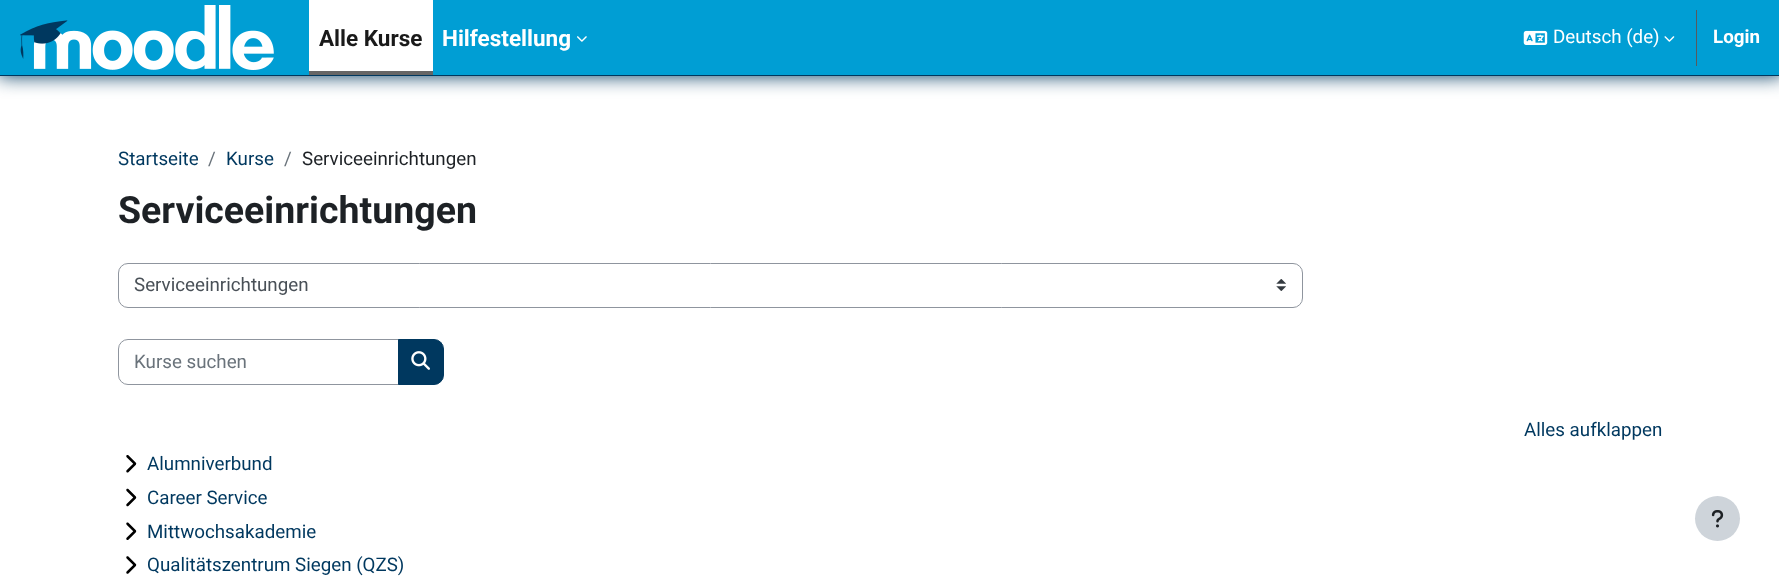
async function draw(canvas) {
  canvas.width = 1779;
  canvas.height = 581;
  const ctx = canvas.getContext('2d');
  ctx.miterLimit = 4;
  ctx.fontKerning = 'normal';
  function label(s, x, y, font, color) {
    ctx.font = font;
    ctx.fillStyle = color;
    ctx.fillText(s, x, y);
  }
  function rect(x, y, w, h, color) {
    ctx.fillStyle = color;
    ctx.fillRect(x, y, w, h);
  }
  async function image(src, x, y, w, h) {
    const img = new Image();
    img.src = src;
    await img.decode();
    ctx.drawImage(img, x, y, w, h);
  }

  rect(0, 0, 1779, 581, '#fff');
  ctx.fillStyle = '#00385f';
  ctx.filter = 'blur(9.5px)';
  ctx.beginPath();
  ctx.rect(-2, -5, 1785, 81);
  ctx.fill();
  ctx.filter = 'none';
  rect(0, 0, 1779, 75, '#009ed4');
  rect(0, 75, 1779, 1, '#00385f');
  await image('assets/img1.png', 20, 5, 254, 65);
  rect(309, 0, 124, 71, '#fff');
  rect(309, 71, 124, 4, '#666');
  label('Alle Kurse', 319, 46, 'bold 22.5px Roboto', '#1a1a1a');
  label('Hilfestellung', 442, 46, 'bold 22.5px Roboto', '#fff');
  await image('assets/img2.png', 577, 36, 10, 6);
  await image('assets/img3.png', 1523, 30, 25, 15);
  label('Deutsch (de)', 1553, 43, '18.75px Roboto', '#fff');
  await image('assets/img4.png', 1664, 36, 11, 6);
  rect(1696, 10, 1, 56, '#595a5c');
  label('Login', 1713, 43, 'bold 18.75px Roboto', '#fff');
  label('Startseite', 118, 165, '18.75px Roboto', '#00385f');
  label('/', 208, 165, '18.75px Roboto', '#6a737b');
  label('Kurse', 226, 165, '18.75px Roboto', '#00385f');
  label('/', 284, 165, '18.75px Roboto', '#6a737b');
  label('Serviceeinrichtungen', 302, 165, '18.75px Roboto', '#1d2125');
  label('Serviceeinrichtungen', 118, 223, 'bold 37.5px Roboto', '#1d2125');
  await image('assets/img5.png', 1276, 279, 10, 12);
  ctx.beginPath();
  ctx.roundRect(118.5, 263.5, 1184, 44, 9.5);
  ctx.strokeStyle = '#8f959e';
  ctx.stroke();
  label('Serviceeinrichtungen', 134, 291, '18.75px Roboto', '#495057');
  ctx.beginPath();
  ctx.roundRect(118.5, 339.5, 280, 45, [9.5, 0, 0, 9.5]);
  ctx.stroke();
  label('Kurse suchen', 134, 368, '18.75px Roboto', '#6a737b');
  ctx.fillStyle = '#00385f';
  ctx.beginPath();
  ctx.roundRect(398.5, 339.5, 45, 45, [0, 9.5, 9.5, 0]);
  ctx.fill();
  ctx.strokeStyle = '#00385f';
  ctx.stroke();
  await image('assets/img6.png', 411, 351, 19, 19);
  label('Alles aufklappen', 1524, 436, '18.75px Roboto', '#00385f');
  await image('assets/img7.png', 126, 455, 11, 18);
  label('Alumniverbund', 147, 470, '18.75px Roboto', '#00385f');
  await image('assets/img8.png', 126, 488, 11, 19);
  label('Career Service', 147, 504, '18.75px Roboto', '#00385f');
  await image('assets/img9.png', 126, 522, 11, 18);
  label('Mittwochsakademie', 147, 538, '18.75px Roboto', '#00385f');
  await image('assets/img10.png', 126, 556, 11, 18);
  label('Qualitätszentrum Siegen (QZS)', 147, 571, '18.75px Roboto', '#00385f');
  ctx.fillStyle = '#ced4da';
  ctx.beginPath();
  ctx.arc(1717.5, 518.5, 22.5, 0, 2 * Math.PI);
  ctx.fill();
  await image('assets/img11.png', 1711, 510, 13, 18);
}

draw(document.querySelector('canvas'));
